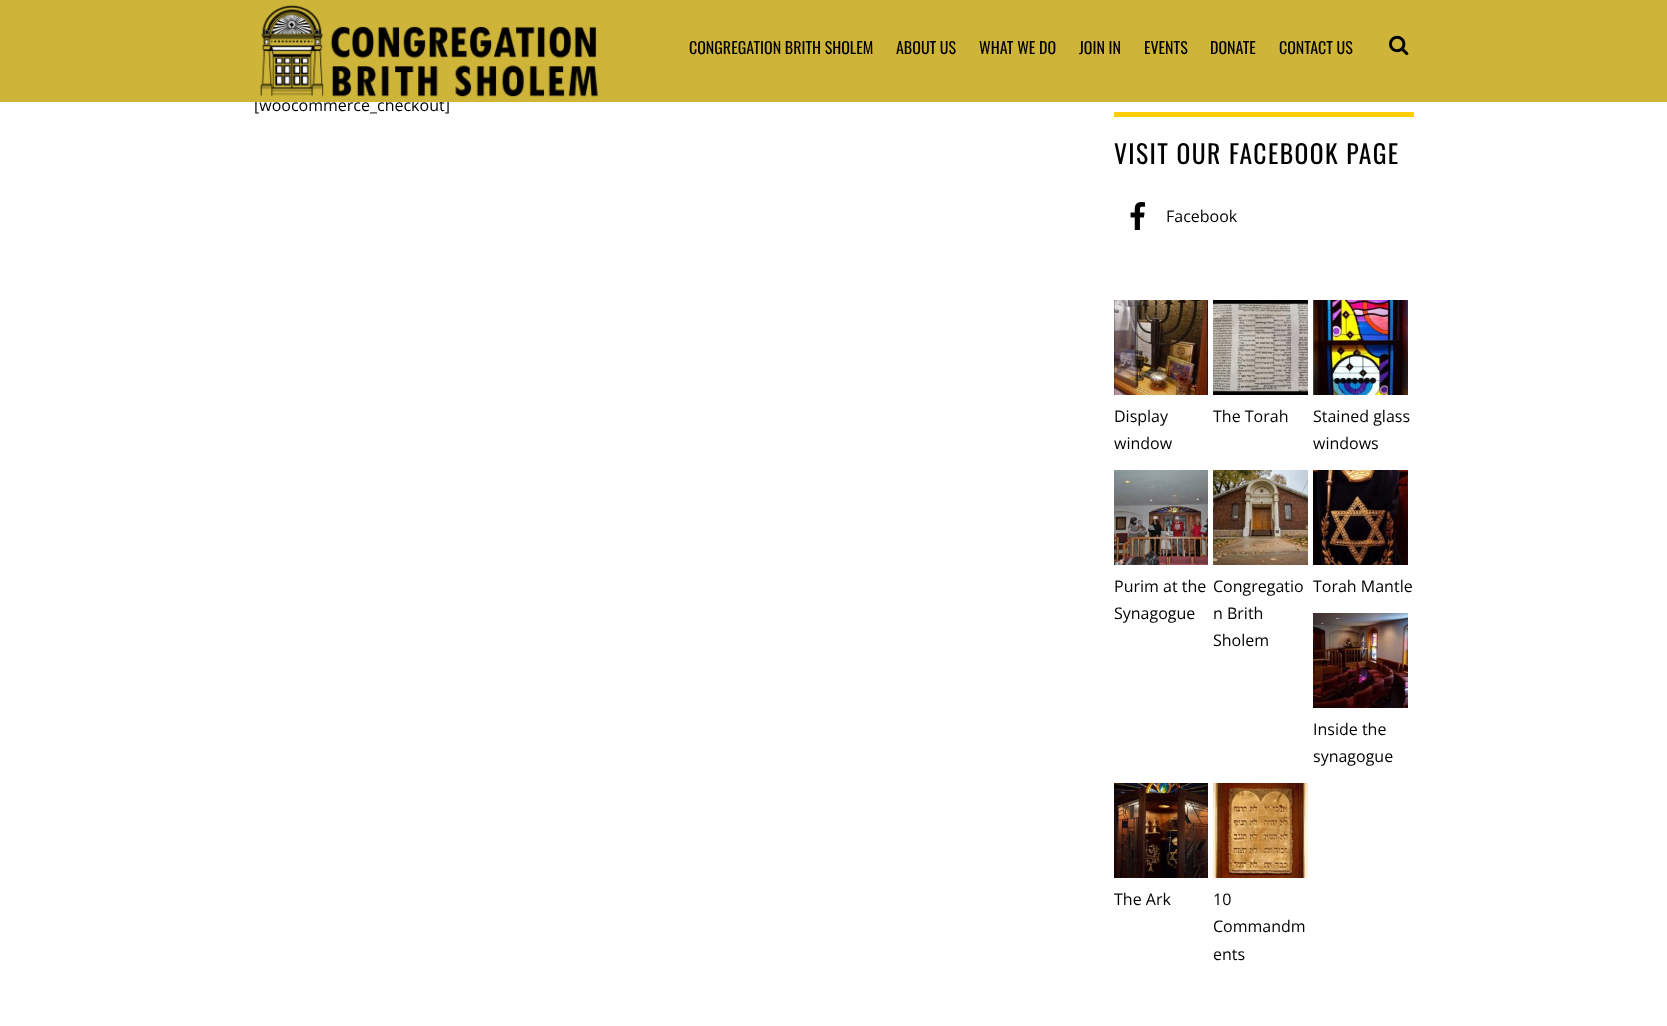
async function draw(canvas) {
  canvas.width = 1667;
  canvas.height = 1026;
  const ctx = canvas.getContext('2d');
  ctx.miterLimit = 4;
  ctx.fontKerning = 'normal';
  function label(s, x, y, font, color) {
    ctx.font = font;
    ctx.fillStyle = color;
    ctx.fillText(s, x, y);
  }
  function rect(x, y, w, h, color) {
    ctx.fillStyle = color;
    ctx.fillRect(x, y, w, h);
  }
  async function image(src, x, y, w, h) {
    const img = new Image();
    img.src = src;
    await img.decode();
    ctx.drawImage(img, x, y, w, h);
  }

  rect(0, 0, 1667, 1026, '#fff');
  label('[woocommerce_checkout]', 254, 111, '16px Open Sans', '#000');
  rect(0, 0, 1667, 102, '#ceb439');
  await image('assets/img1.png', 260, 5, 339, 92);
  label('CONGREGATION BRITH SHOLEM', 689, 54, '16px Oswald', '#000');
  label('ABOUT US', 896, 54, '16px Oswald', '#000');
  label('WHAT WE DO', 979, 54, '16px Oswald', '#000');
  label('JOIN IN', 1079, 54, '16px Oswald', '#000');
  label('EVENTS', 1144, 54, '16px Oswald', '#000');
  label('DONATE', 1210, 54, '16px Oswald', '#000');
  label('CONTACT US', 1279, 54, '16px Oswald', '#000');
  await image('assets/img2.png', 1389, 35, 20, 21);
  rect(1114, 112, 300, 5, '#fecd06');
  ctx.letterSpacing = '1.4px';
  label('VISIT OUR FACEBOOK PAGE', 1114, 164, '25.6px Oswald', '#000');
  await image('assets/img3.png', 1130, 202, 15, 28);
  ctx.letterSpacing = '0px';
  label('Facebook', 1166, 222, '16px Open Sans', '#000');
  await image('assets/img4.png', 1114, 300, 94, 95);
  label('Display', 1114, 422, '16px Open Sans', '#000');
  label('window', 1114, 449, '16px Open Sans', '#000');
  await image('assets/img5.png', 1213, 300, 95, 95);
  label('The Torah', 1213, 422, '16px Open Sans', '#000');
  await image('assets/img6.png', 1313, 300, 95, 95);
  label('Stained glass', 1313, 422, '16px Open Sans', '#000');
  label('windows', 1313, 449, '16px Open Sans', '#000');
  await image('assets/img7.png', 1114, 470, 94, 95);
  label('Purim at the', 1114, 592, '16px Open Sans', '#000');
  label('Synagogue', 1114, 619, '16px Open Sans', '#000');
  await image('assets/img8.png', 1213, 470, 95, 95);
  label('Congregatio', 1213, 592, '16px Open Sans', '#000');
  label('n Brith', 1213, 619, '16px Open Sans', '#000');
  label('Sholem', 1213, 646, '16px Open Sans', '#000');
  await image('assets/img9.png', 1313, 470, 95, 95);
  label('Torah Mantle', 1313, 592, '16px Open Sans', '#000');
  await image('assets/img10.png', 1313, 613, 95, 95);
  label('Inside the', 1313, 735, '16px Open Sans', '#000');
  label('synagogue', 1313, 762, '16px Open Sans', '#000');
  await image('assets/img11.png', 1114, 783, 94, 95);
  label('The Ark', 1114, 905, '16px Open Sans', '#000');
  await image('assets/img12.png', 1213, 783, 95, 95);
  label('10', 1213, 905, '16px Open Sans', '#000');
  label('Commandm', 1213, 932, '16px Open Sans', '#000');
  label('ents', 1213, 960, '16px Open Sans', '#000');
}

draw(document.querySelector('canvas'));
